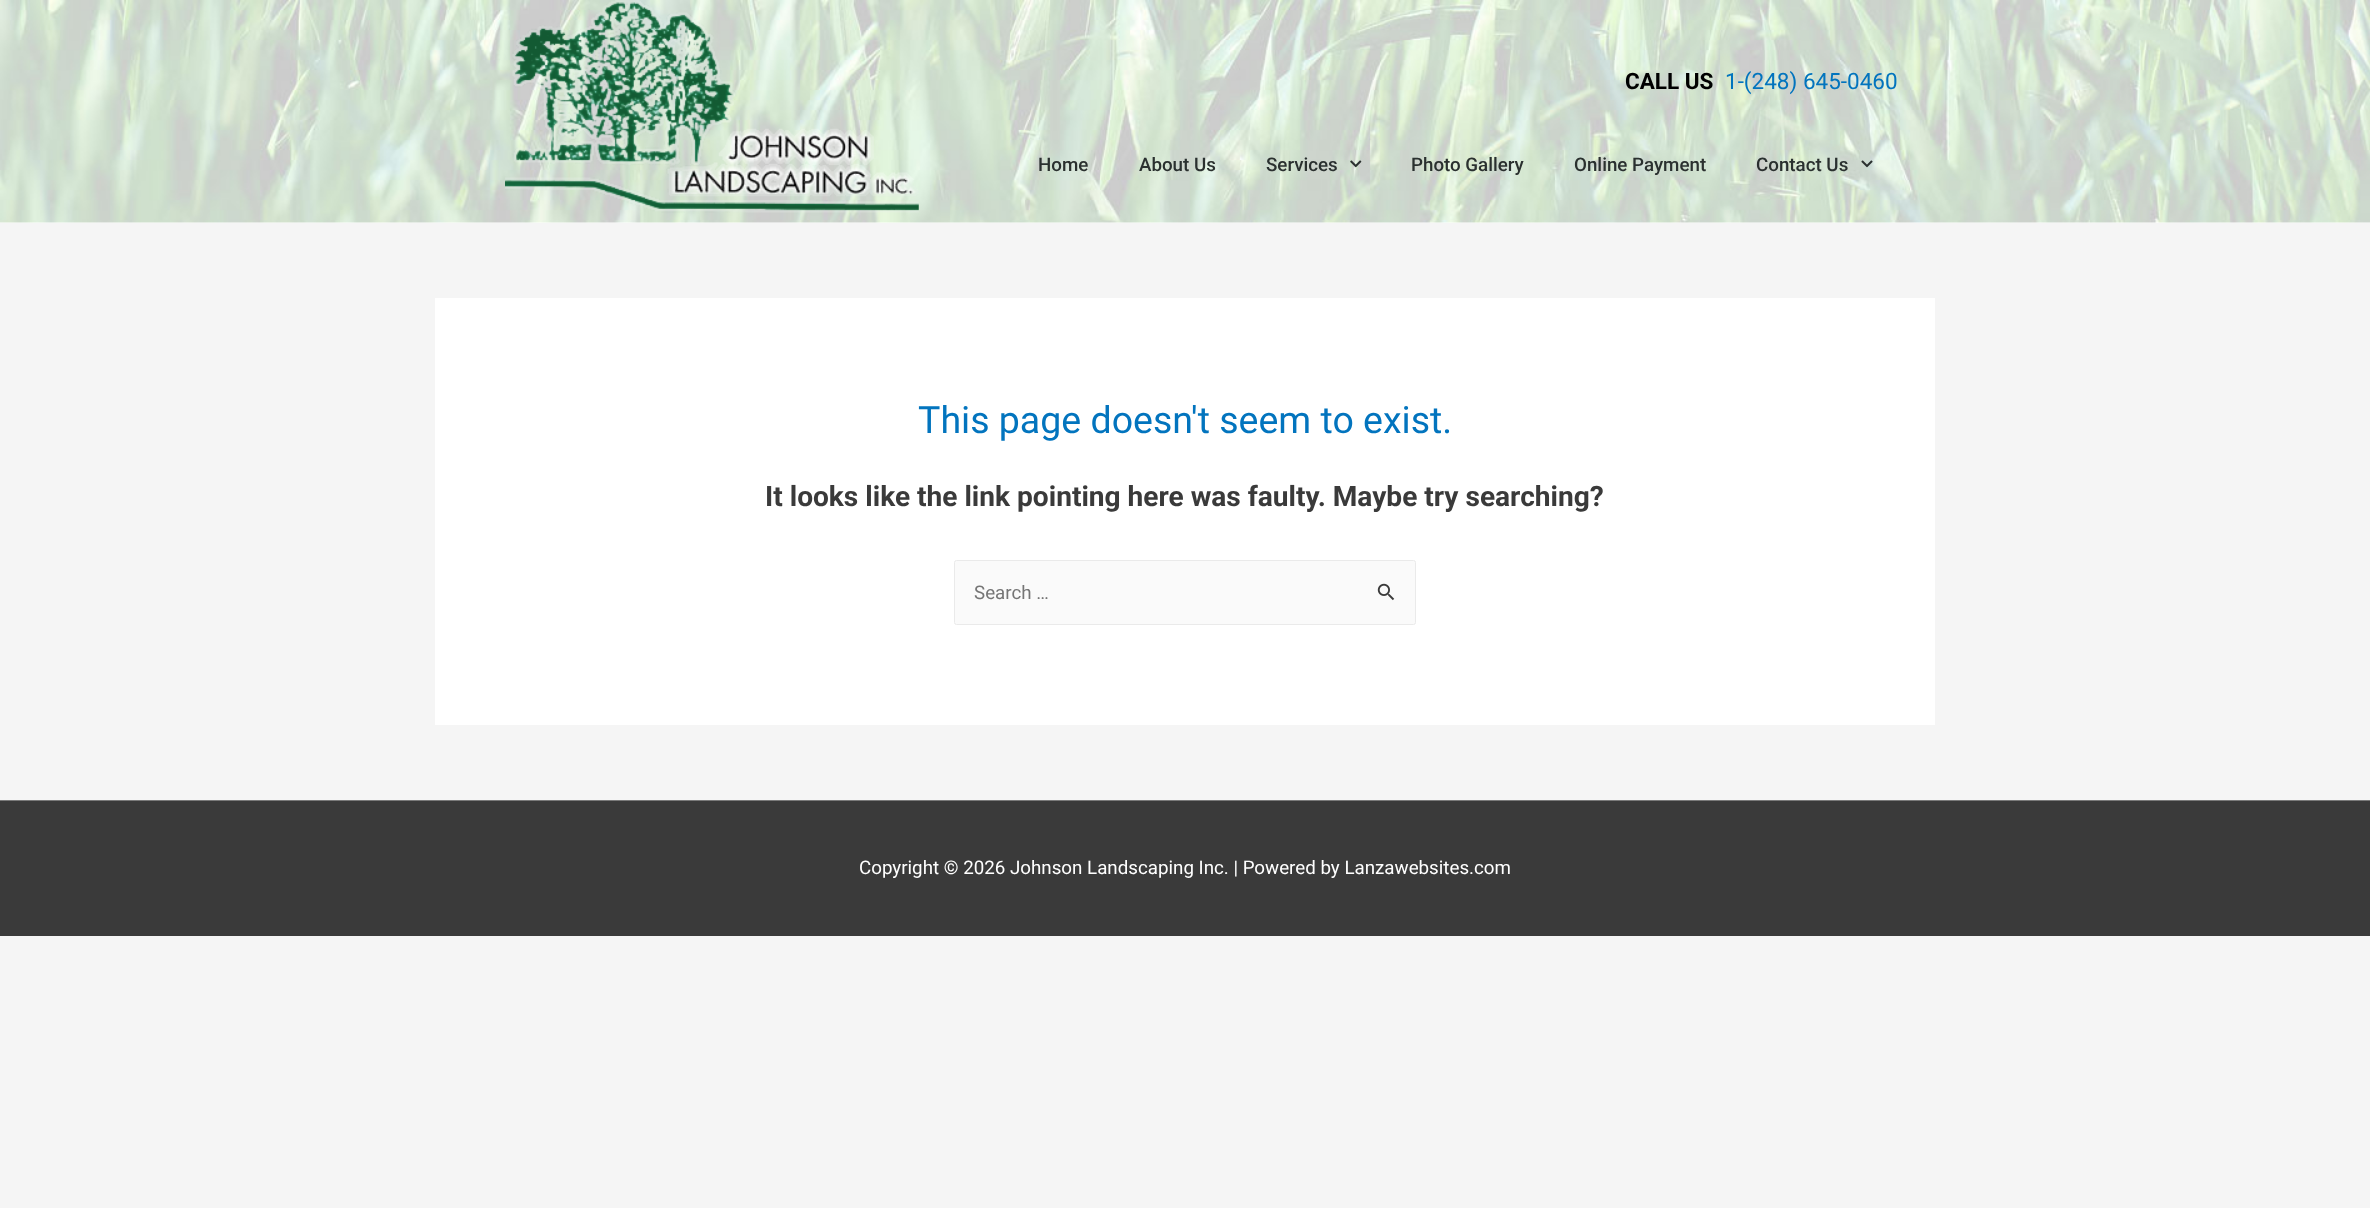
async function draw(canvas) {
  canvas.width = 2370;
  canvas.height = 1208;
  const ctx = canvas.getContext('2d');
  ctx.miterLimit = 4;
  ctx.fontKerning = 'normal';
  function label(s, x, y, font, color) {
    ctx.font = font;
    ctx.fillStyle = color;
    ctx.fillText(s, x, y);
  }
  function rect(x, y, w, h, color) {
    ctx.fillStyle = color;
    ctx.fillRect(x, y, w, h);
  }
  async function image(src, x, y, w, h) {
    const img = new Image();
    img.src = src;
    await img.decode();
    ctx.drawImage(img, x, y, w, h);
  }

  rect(0, 0, 2370, 1208, '#f5f5f5');
  rect(0, 222, 2370, 1, '#fff');
  await image('assets/img1.png', 0, 0, 2370, 223);
  await image('assets/img2.png', 505, 0, 414, 213);
  label('CALL US', 1625, 89, 'bold 22.5px Roboto', '#000');
  label('1-(248) 645-0460', 1725, 89, '22.5px Roboto', '#0274be');
  label('Home', 1038, 171, '500 18.75px Roboto', '#2a302f');
  label('About Us', 1139, 171, '500 18.75px Roboto', '#2a302f');
  label('Services', 1266, 171, '500 18.75px Roboto', '#2a302f');
  await image('assets/img3.png', 1350, 160, 12, 8);
  label('Photo Gallery', 1411, 171, '500 18.75px Roboto', '#2a302f');
  label('Online Payment', 1574, 171, '500 18.75px Roboto', '#2a302f');
  label('Contact Us', 1756, 171, '500 18.75px Roboto', '#2a302f');
  await image('assets/img4.png', 1861, 160, 12, 8);
  rect(435, 298, 1500, 427, '#fff');
  label('This page doesn\'t seem to exist.', 918, 433, '37.5px Roboto', '#0274be');
  label('It looks like the link pointing here was faulty. Maybe try searching?', 765, 506, 'bold 28.1px Roboto', '#3a3a3a');
  ctx.fillStyle = '#fafafa';
  ctx.beginPath();
  ctx.roundRect(954.5, 560.5, 461, 64, 2);
  ctx.fill();
  ctx.strokeStyle = '#eaeaea';
  ctx.stroke();
  label('Search …', 974, 599, '18.75px Roboto', '#757575');
  await image('assets/img5.png', 1377, 583, 18, 18);
  rect(0, 800, 2370, 1, '#7a7a7a');
  rect(0, 801, 2370, 135, '#3a3a3a');
  label('Copyright © 2026 Johnson Landscaping Inc. | Powered by Lanzawebsites.com', 859, 874, '18.75px Roboto', '#fff');
}

draw(document.querySelector('canvas'));
